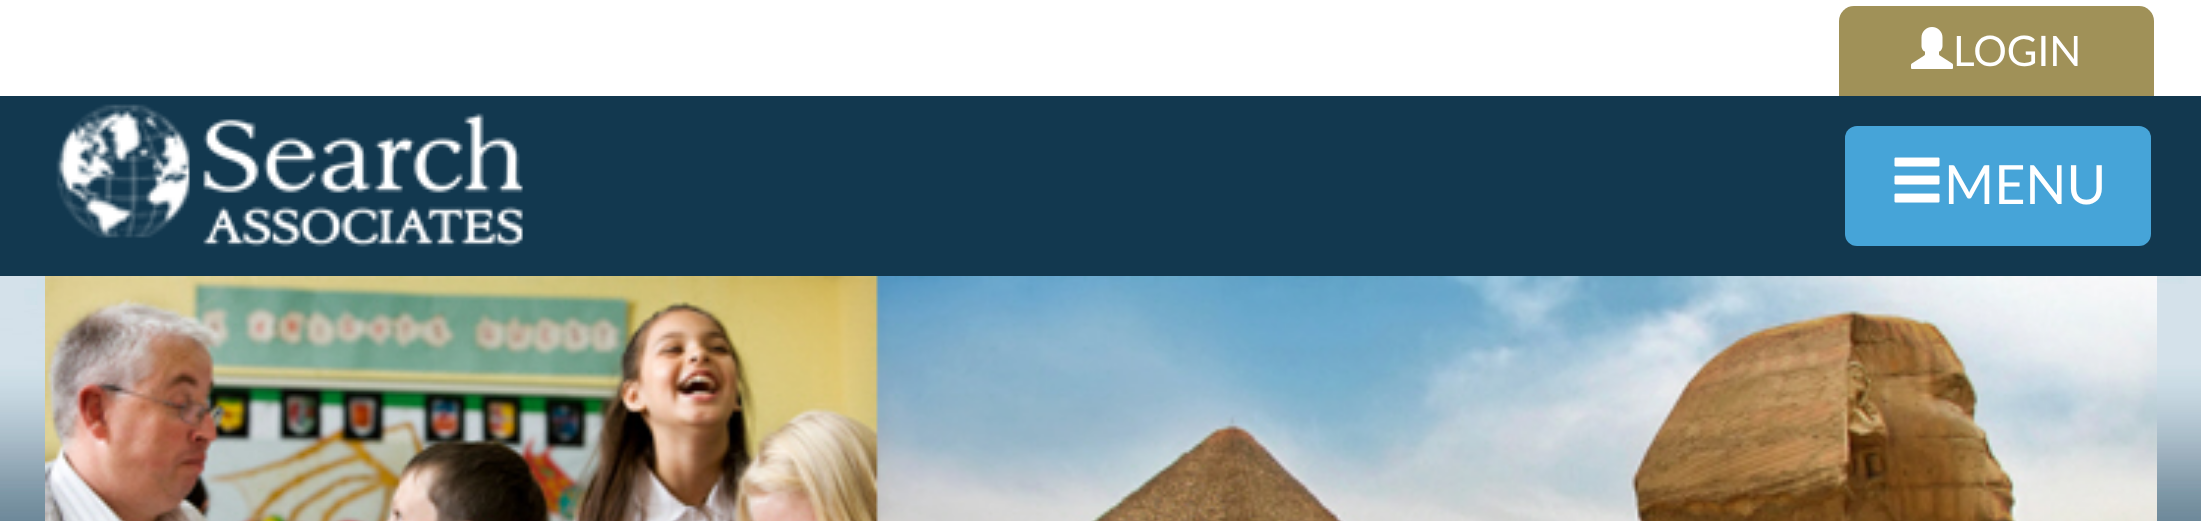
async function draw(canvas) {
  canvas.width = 2201;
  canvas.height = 521;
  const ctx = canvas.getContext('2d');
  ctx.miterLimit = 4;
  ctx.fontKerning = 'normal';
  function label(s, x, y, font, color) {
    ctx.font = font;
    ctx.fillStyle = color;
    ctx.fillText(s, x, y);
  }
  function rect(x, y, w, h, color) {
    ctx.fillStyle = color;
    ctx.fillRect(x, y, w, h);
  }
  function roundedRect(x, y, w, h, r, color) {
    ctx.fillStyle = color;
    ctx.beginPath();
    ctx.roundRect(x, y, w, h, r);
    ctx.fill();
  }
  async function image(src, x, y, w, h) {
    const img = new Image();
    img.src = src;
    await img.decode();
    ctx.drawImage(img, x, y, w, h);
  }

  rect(0, 0, 2201, 521, '#fff');
  ctx.fillStyle = '#a09158';
  ctx.beginPath();
  ctx.roundRect(1839, 6, 315, 90, [15, 15, 0, 0]);
  ctx.fill();
  await image('assets/img1.png', 1911, 27, 42, 42);
  label('LOGIN', 1953, 66, '42px Lato', '#fff');
  rect(0, 96, 2201, 180, '#12384f');
  await image('assets/img2.png', 56, 104, 467, 143);
  roundedRect(1845, 126, 306, 120, 12, '#46a4d8');
  await image('assets/img3.png', 1894, 157, 46, 46);
  label('MENU', 1944, 204, '54px Lato', '#fff');
  await image('assets/img5.png', 0, 276, 2201, 245);
  await image('assets/img4.png', 45, 276, 2112, 245);
}

draw(document.querySelector('canvas'));
